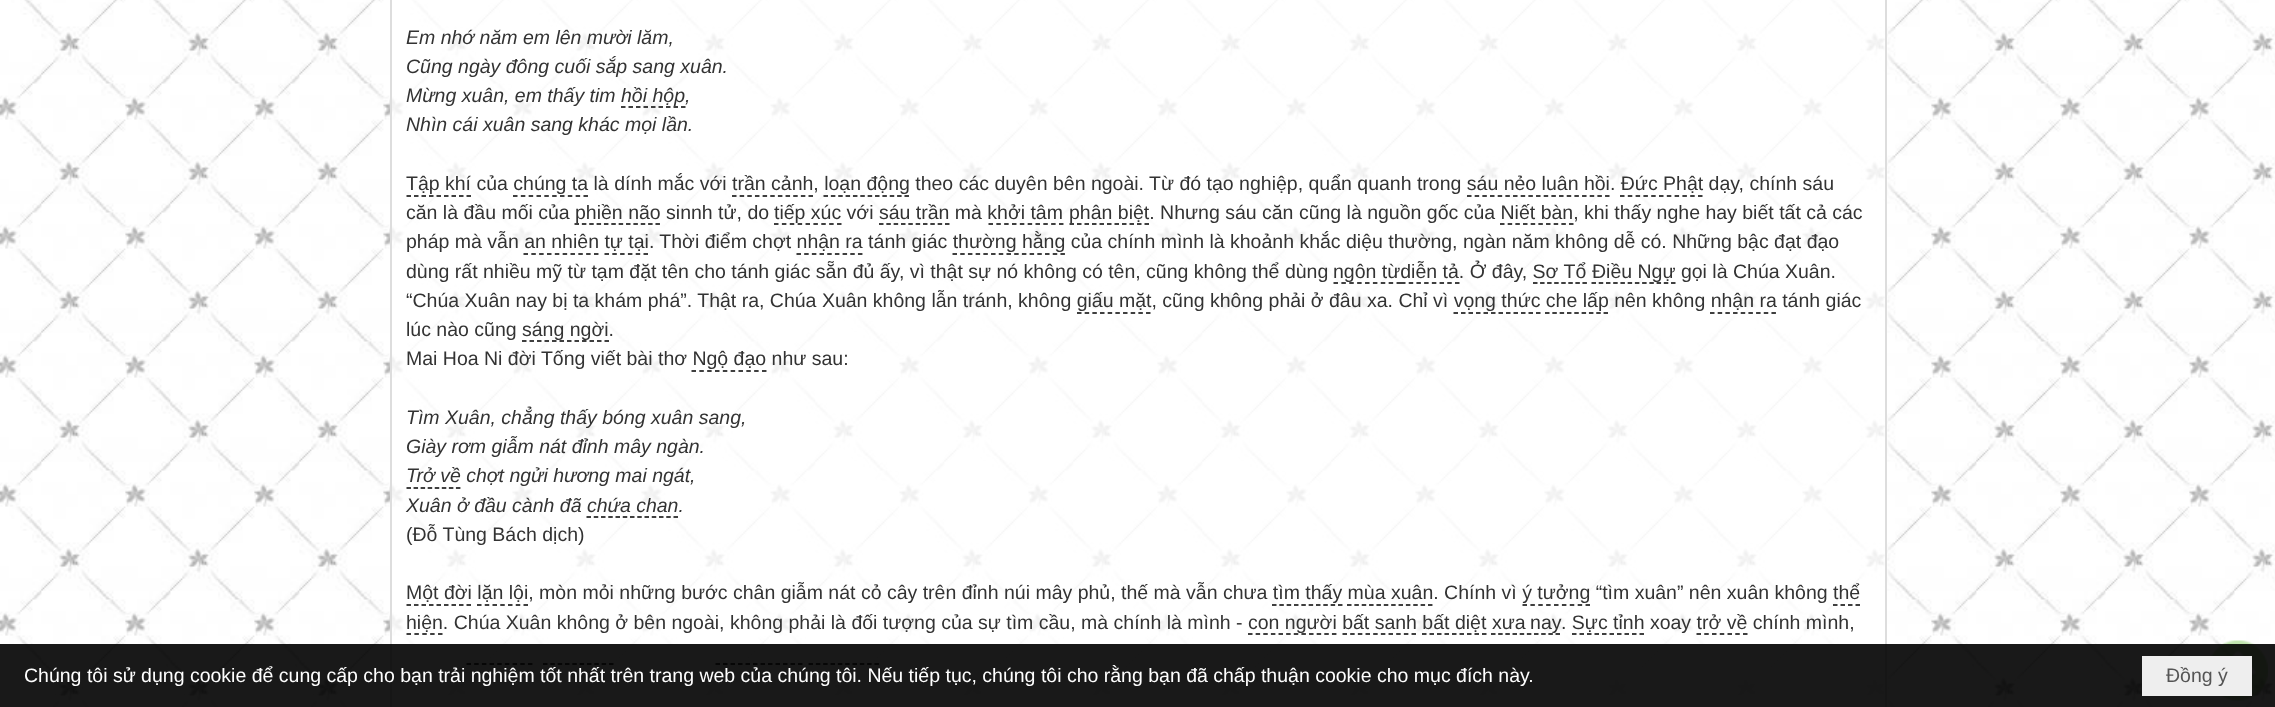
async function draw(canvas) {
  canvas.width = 2275;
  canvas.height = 707;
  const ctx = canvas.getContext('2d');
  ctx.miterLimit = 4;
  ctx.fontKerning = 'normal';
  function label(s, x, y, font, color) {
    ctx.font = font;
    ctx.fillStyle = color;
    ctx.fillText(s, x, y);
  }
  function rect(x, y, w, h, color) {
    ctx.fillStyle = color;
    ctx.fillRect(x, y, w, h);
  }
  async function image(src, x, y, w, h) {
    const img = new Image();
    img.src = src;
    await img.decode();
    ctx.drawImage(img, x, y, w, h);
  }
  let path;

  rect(0, 0, 2275, 707, '#fff');
  await image('assets/img1.png', 0, 0, 2275, 707);
  ctx.fillStyle = '#ffffffcc';
  ctx.beginPath();
  ctx.rect(391, -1, 1495, 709);
  ctx.fill();
  ctx.strokeStyle = '#ddd';
  ctx.lineWidth = 2;
  ctx.stroke();
  label('Em nhớ năm em lên mười lăm,', 406, 44, 'italic 19.5px Liberation Sans', '#333');
  label('Cũng ngày đông cuối sắp sang xuân.', 406, 73, 'italic 19.5px Liberation Sans', '#333');
  label('Mừng xuân, em thấy tim', 406, 102, 'italic 19.5px Liberation Sans', '#333');
  path = new Path2D('M621 107H685.5');
  ctx.strokeStyle = '#000';
  ctx.lineWidth = 1.5;
  ctx.setLineDash([4.5, 3]);
  ctx.stroke(path);
  label('hồi hộp,', 621, 102, 'italic 19.5px Liberation Sans', '#333');
  label('Nhìn cái xuân sang khác mọi lần.', 406, 131, 'italic 19.5px Liberation Sans', '#333');
  label('Tập khí của chúng ta là dính mắc với trần cảnh, loạn động theo các duyên bên ngoài. Từ đó tạo nghiệp, quẩn quanh trong sáu nẻo luân hồi. Đức Phật dạy, chính sáu', 406, 190, '19.5px Liberation Sans', '#333');
  path = new Path2D('M406.5 196H471');
  ctx.stroke(path);
  path = new Path2D('M513 196H588');
  ctx.setLineDash([4.5, 3.33]);
  ctx.stroke(path);
  path = new Path2D('M732 196H813');
  ctx.setLineDash([4.5, 3.15]);
  ctx.stroke(path);
  path = new Path2D('M823.5 196H909');
  ctx.setLineDash([4.5, 2.86]);
  ctx.stroke(path);
  path = new Path2D('M1467 196H1609.5');
  ctx.setLineDash([4.5, 3.17]);
  ctx.stroke(path);
  path = new Path2D('M1620 196H1702.5');
  ctx.setLineDash([4.5, 3.3]);
  ctx.stroke(path);
  label('căn là đầu mối của', 406, 219, '19.5px Liberation Sans', '#333');
  path = new Path2D('M574.5 224H660');
  ctx.setLineDash([4.5, 2.86]);
  ctx.stroke(path);
  label('phiền não sinnh tử, do', 575, 219, '19.5px Liberation Sans', '#333');
  path = new Path2D('M774 224H841.5');
  ctx.setLineDash([4.5, 3.38]);
  ctx.stroke(path);
  label('tiếp xúc với sáu trần mà khởi tâm', 774, 219, '19.5px Liberation Sans', '#333');
  path = new Path2D('M1069.5 224H1149');
  ctx.setLineDash([4.5, 3]);
  ctx.stroke(path);
  label('phân biệt. Nhưng sáu căn cũng là nguồn gốc của Niết bàn, khi thấy nghe hay biết tất cả các', 1069, 219, '19.5px Liberation Sans', '#333');
  path = new Path2D('M879 224H949.5');
  ctx.setLineDash([4.5, 2.83]);
  ctx.stroke(path);
  path = new Path2D('M988.5 224H1063.5');
  ctx.setLineDash([4.5, 3.33]);
  ctx.stroke(path);
  path = new Path2D('M1500 224H1573.5');
  ctx.setLineDash([4.5, 3.17]);
  ctx.stroke(path);
  label('pháp mà vẫn an nhiên tự tại. Thời điểm chợt nhận ra tánh giác thường hằng của chính mình là khoảnh khắc diệu thường, ngàn năm không dễ có. Những bậc đạt đạo', 406, 248, '19.5px Liberation Sans', '#333');
  path = new Path2D('M523.5 254H598.5');
  ctx.setLineDash([4.5, 3.33]);
  ctx.stroke(path);
  path = new Path2D('M604.5 254H648');
  ctx.setLineDash([4.5, 3.3]);
  ctx.stroke(path);
  path = new Path2D('M796.5 254H862.5');
  ctx.setLineDash([4.5, 3.18]);
  ctx.stroke(path);
  path = new Path2D('M952.5 254H1065');
  ctx.setLineDash([4.5, 3.21]);
  ctx.stroke(path);
  label('dùng rất nhiều mỹ từ tạm đặt tên cho tánh giác sẵn đủ ấy, vì thật sự nó không có tên, cũng không thể dùng', 406, 278, '19.5px Liberation Sans', '#333');
  path = new Path2D('M1333.5 283H1401');
  ctx.setLineDash([4.5, 3.38]);
  ctx.stroke(path);
  label('ngôn từdiễn tả. Ở đây, Sơ Tổ', 1333, 278, '19.5px Liberation Sans', '#333');
  path = new Path2D('M1591.5 283H1675.5');
  ctx.setLineDash([4.5, 2.73]);
  ctx.stroke(path);
  label('Điều Ngự gọi là Chúa Xuân.', 1592, 278, '19.5px Liberation Sans', '#333');
  path = new Path2D('M1401 283H1459.5');
  ctx.setLineDash([4.5, 3.21]);
  ctx.stroke(path);
  path = new Path2D('M1533 283H1587');
  ctx.setLineDash([4.5, 2.56]);
  ctx.stroke(path);
  label('“Chúa Xuân nay bị ta khám phá”. Thật ra, Chúa Xuân không lẫn tránh, không giấu mặt, cũng không phải ở đâu xa. Chỉ vì vọng thức che lấp nên không nhận ra tánh giác', 406, 307, '19.5px Liberation Sans', '#333');
  path = new Path2D('M1077 313H1150.5');
  ctx.setLineDash([4.5, 3.17]);
  ctx.stroke(path);
  path = new Path2D('M1453.5 313H1540.5');
  ctx.setLineDash([4.5, 3]);
  ctx.stroke(path);
  path = new Path2D('M1545 313H1608');
  ctx.setLineDash([4.5, 2.82]);
  ctx.stroke(path);
  path = new Path2D('M1710 313H1776');
  ctx.setLineDash([4.5, 3.18]);
  ctx.stroke(path);
  label('lúc nào cũng', 406, 336, '19.5px Liberation Sans', '#333');
  path = new Path2D('M522 341H609');
  ctx.setLineDash([4.5, 3]);
  ctx.stroke(path);
  label('sáng ngời.', 522, 336, '19.5px Liberation Sans', '#333');
  label('Mai Hoa Ni đời Tống viết bài thơ Ngộ đạo như sau:', 406, 365, '19.5px Liberation Sans', '#333');
  path = new Path2D('M691.5 371H766.5');
  ctx.setLineDash([4.5, 3.33]);
  ctx.stroke(path);
  label('Tìm Xuân, chẳng thấy bóng xuân sang,', 406, 424, 'italic 19.5px Liberation Sans', '#333');
  label('Giày rơm giẫm nát đỉnh mây ngàn.', 406, 453, 'italic 19.5px Liberation Sans', '#333');
  label('Trở về chợt ngửi hương mai ngát,', 406, 482, 'italic 19.5px Liberation Sans', '#333');
  path = new Path2D('M406.5 488H460.5');
  ctx.setLineDash([4.5, 2.56]);
  ctx.stroke(path);
  label('Xuân ở đầu cành đã chứa chan.', 406, 512, 'italic 19.5px Liberation Sans', '#333');
  path = new Path2D('M586.5 517H678');
  ctx.setLineDash([4.5, 2.75]);
  ctx.stroke(path);
  label('(Đỗ Tùng Bách dịch)', 406, 541, '19.5px Liberation Sans', '#333');
  label('Một đời lặn lội, mòn mỏi những bước chân giẫm nát cỏ cây trên đỉnh núi mây phủ, thế mà vẫn chưa tìm thấy mùa xuân. Chính vì ý tưởng “tìm xuân” nên xuân không thể', 406, 599, '19.5px Liberation Sans', '#333');
  path = new Path2D('M406.5 605H471');
  ctx.setLineDash([4.5, 3]);
  ctx.stroke(path);
  path = new Path2D('M477 605H528');
  ctx.setLineDash([4.5, 3.25]);
  ctx.stroke(path);
  path = new Path2D('M1272 605H1342.5');
  ctx.setLineDash([4.5, 2.83]);
  ctx.stroke(path);
  path = new Path2D('M1347 605H1432.5');
  ctx.setLineDash([4.5, 2.86]);
  ctx.stroke(path);
  path = new Path2D('M1522.5 605H1590');
  ctx.setLineDash([4.5, 3.38]);
  ctx.stroke(path);
  path = new Path2D('M406.5 634H442.5');
  ctx.stroke(path);
  label('hiện. Chúa Xuân không ở bên ngoài, không phải là đối tượng của sự tìm cầu, mà chính là mình -', 406, 629, '19.5px Liberation Sans', '#333');
  path = new Path2D('M1833 605H1860');
  ctx.setLineDash([4.5, 3]);
  ctx.stroke(path);
  path = new Path2D('M1248 634H1336.5');
  ctx.setLineDash([4.5, 3.13]);
  ctx.stroke(path);
  label('con người bất sanh bất diệt', 1248, 629, '19.5px Liberation Sans', '#333');
  path = new Path2D('M1491 634H1560');
  ctx.setLineDash([4.5, 2.67]);
  ctx.stroke(path);
  ctx.wordSpacing = '-1px';
  label('xưa nay', 1492, 629, '19.5px Liberation Sans', '#333');
  ctx.wordSpacing = '0px';
  label('. Sực tỉnh xoay trở về chính mình,', 1561, 629, '19.5px Liberation Sans', '#333');
  path = new Path2D('M1342.5 634H1416');
  ctx.setLineDash([4.5, 3.17]);
  ctx.stroke(path);
  path = new Path2D('M1422 634H1486.5');
  ctx.setLineDash([4.5, 3]);
  ctx.stroke(path);
  path = new Path2D('M1572 634H1644');
  ctx.stroke(path);
  path = new Path2D('M1696.5 634H1747.5');
  ctx.setLineDash([4.5, 3.25]);
  ctx.stroke(path);
  path = new Path2D('M466.5 664H532.5');
  ctx.setLineDash([4.5, 3.18]);
  ctx.stroke(path);
  path = new Path2D('M543 664H613.5');
  ctx.setLineDash([4.5, 2.83]);
  ctx.stroke(path);
  path = new Path2D('M715.5 664H802.5');
  ctx.setLineDash([4.5, 3]);
  ctx.stroke(path);
  path = new Path2D('M808.5 664H879');
  ctx.setLineDash([4.5, 2.83]);
  ctx.stroke(path);
  await image('assets/img2.png', 2210, 640, 58, 61);
  rect(0, 644, 2275, 63, '#000000e6');
  label('Chúng tôi sử dụng cookie để cung cấp cho bạn trải nghiệm tốt nhất trên trang web của chúng tôi. Nếu tiếp tục, chúng tôi cho rằng bạn đã chấp thuận cookie cho mục đích này.', 24, 682, '19.5px Liberation Sans', '#fff');
  rect(2142, 656, 110, 40, '#eee');
  label('Đồng ý', 2166, 682, '19.5px Liberation Sans', '#555');
}

draw(document.querySelector('canvas'));
